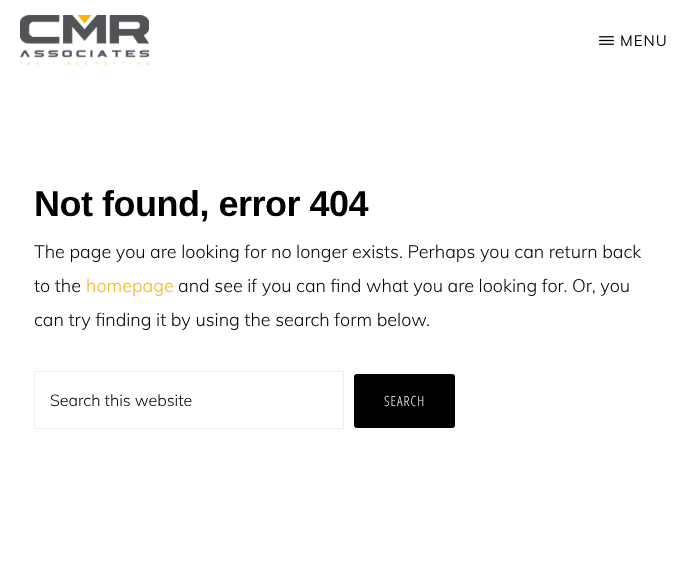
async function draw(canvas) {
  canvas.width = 688;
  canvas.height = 570;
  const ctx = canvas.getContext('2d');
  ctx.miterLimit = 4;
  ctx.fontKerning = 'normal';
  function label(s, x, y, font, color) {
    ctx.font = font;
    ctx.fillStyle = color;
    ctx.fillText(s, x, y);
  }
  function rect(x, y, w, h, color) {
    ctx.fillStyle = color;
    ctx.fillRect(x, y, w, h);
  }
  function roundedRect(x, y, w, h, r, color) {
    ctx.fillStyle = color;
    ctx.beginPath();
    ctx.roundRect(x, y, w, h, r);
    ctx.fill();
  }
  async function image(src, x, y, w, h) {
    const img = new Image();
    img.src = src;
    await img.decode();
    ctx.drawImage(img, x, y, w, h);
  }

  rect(0, 0, 688, 570, '#fff');
  await image('assets/img1.png', 20, 15, 129, 50);
  await image('assets/img2.png', 599, 36, 15, 9);
  ctx.letterSpacing = '1px';
  label('MENU', 620, 46, '15px Muli', '#000');
  ctx.letterSpacing = '-0.5px';
  label('Not found, error 404', 34, 216, 'bold 36px Liberation Sans', '#000');
  ctx.letterSpacing = '0px';
  label('The page you are looking for no longer exists. Perhaps you can return back', 34, 258, '300 18px Muli', '#000');
  label('to the', 34, 292, '300 18px Muli', '#000');
  label('homepage', 86, 292, '300 18px Muli', '#fdb314');
  label('and see if you can find what you are looking for. Or, you', 178, 292, '300 18px Muli', '#000');
  label('can try finding it by using the search form below.', 34, 326, '300 18px Muli', '#000');
  ctx.strokeStyle = '#eee';
  ctx.strokeRect(34.5, 371.5, 309, 57);
  label('Search this website', 50, 406, '300 16px Muli', '#000');
  roundedRect(354, 374, 101, 54, 3, '#000');
  ctx.letterSpacing = '1px';
  label('SEARCH', 384, 406, '300 14px Open Sans Condensed', '#fff');
}

draw(document.querySelector('canvas'));
